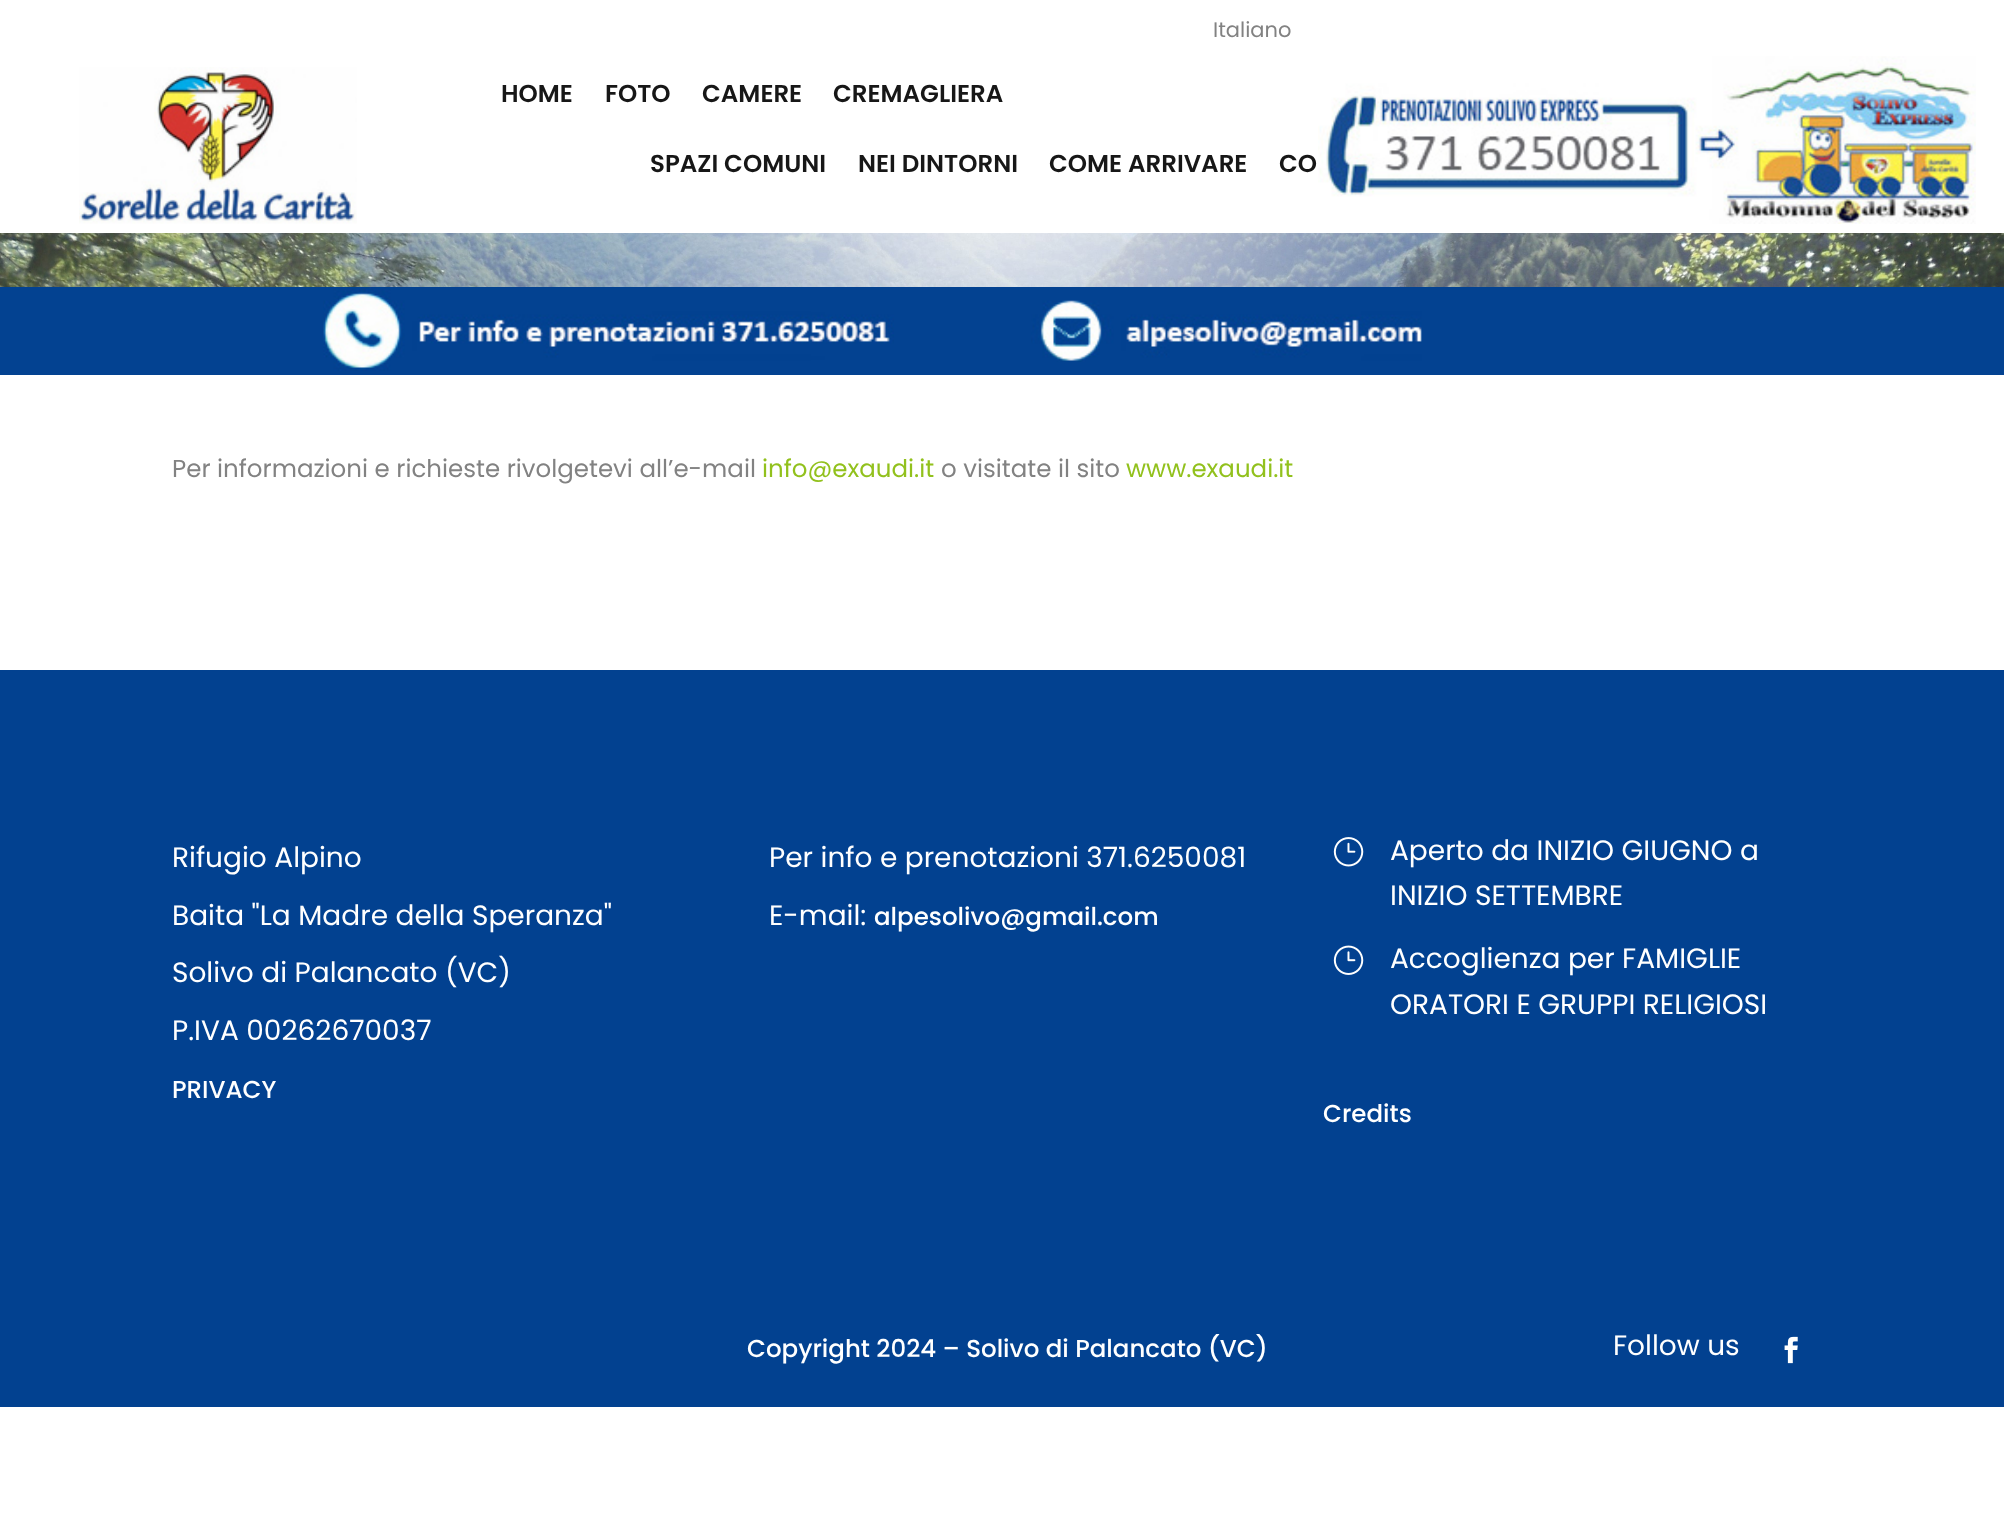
async function draw(canvas) {
  canvas.width = 2004;
  canvas.height = 1521;
  const ctx = canvas.getContext('2d');
  ctx.miterLimit = 4;
  ctx.fontKerning = 'normal';
  function label(s, x, y, font, color) {
    ctx.font = font;
    ctx.fillStyle = color;
    ctx.fillText(s, x, y);
  }
  function rect(x, y, w, h, color) {
    ctx.fillStyle = color;
    ctx.fillRect(x, y, w, h);
  }
  async function image(src, x, y, w, h) {
    const img = new Image();
    img.src = src;
    await img.decode();
    ctx.drawImage(img, x, y, w, h);
  }

  rect(0, 0, 2004, 1521, '#fff');
  label('Italiano', 1213, 37, '21px Poppins', '#828282');
  await image('assets/img1.png', 1318, 56, 658, 168);
  await image('assets/img2.png', 79, 67, 278, 157);
  label('HOME', 501, 102, '600 24.5px Poppins', '#171717');
  label('FOTO', 605, 102, '600 24.5px Poppins', '#171717');
  label('CAMERE', 702, 102, '600 24.5px Poppins', '#171717');
  label('CREMAGLIERA', 833, 102, '600 24.5px Poppins', '#171717');
  label('SPAZI COMUNI', 650, 172, '600 24.5px Poppins', '#171717');
  label('NEI DINTORNI', 858, 172, '600 24.5px Poppins', '#171717');
  label('COME ARRIVARE', 1049, 172, '600 24.5px Poppins', '#171717');
  label('CO', 1279, 172, '600 24.5px Poppins', '#171717');
  await image('assets/img3.png', 0, 233, 2004, 54);
  rect(0, 287, 2004, 88, '#034291');
  await image('assets/img4.png', 323, 287, 571, 84);
  await image('assets/img5.png', 1031, 300, 391, 62);
  label('Per informazioni e richieste rivolgetevi all’e-mail', 172, 477, '24.5px Poppins', '#828282');
  label('info@exaudi.it', 762, 477, '24.5px Poppins', '#92c11d');
  label('o visitate il sito', 941, 477, '24.5px Poppins', '#828282');
  label('www.exaudi.it', 1126, 477, '24.5px Poppins', '#92c11d');
  rect(0, 670, 2004, 737, '#024190');
  label('Rifugio Alpino', 172, 867, '28px Poppins', '#fff');
  label('Baita "La Madre della Speranza"', 172, 925, '28px Poppins', '#fff');
  label('Solivo di Palancato (VC)', 172, 982, '28px Poppins', '#fff');
  label('P.IVA 00262670037', 172, 1040, '28px Poppins', '#fff');
  label('PRIVACY', 172, 1098, '500 24.5px Poppins', '#fff');
  label('Per info e prenotazioni 371.6250081', 769, 867, '28px Poppins', '#fff');
  label('E-mail:', 769, 925, '28px Poppins', '#fff');
  label('alpesolivo@gmail.com', 874, 925, '500 24.5px Poppins', '#fff');
  await image('assets/img6.png', 1333, 837, 31, 30);
  label('Aperto da INIZIO GIUGNO a', 1390, 860, '28px Poppins', '#fff');
  label('INIZIO SETTEMBRE', 1390, 905, '28px Poppins', '#fff');
  await image('assets/img7.png', 1333, 945, 31, 30);
  label('Accoglienza per FAMIGLIE', 1390, 968, '28px Poppins', '#fff');
  label('ORATORI E GRUPPI RELIGIOSI', 1390, 1014, '28px Poppins', '#fff');
  label('Credits', 1323, 1122, '500 24.5px Poppins', '#fff');
  label('Copyright 2024 – Solivo di Palancato (VC)', 747, 1357, '500 24.5px Poppins', '#fff');
  label('Follow us', 1613, 1355, '28px Poppins', '#fff');
  await image('assets/img8.png', 1784, 1336, 14, 28);
}

draw(document.querySelector('canvas'));
